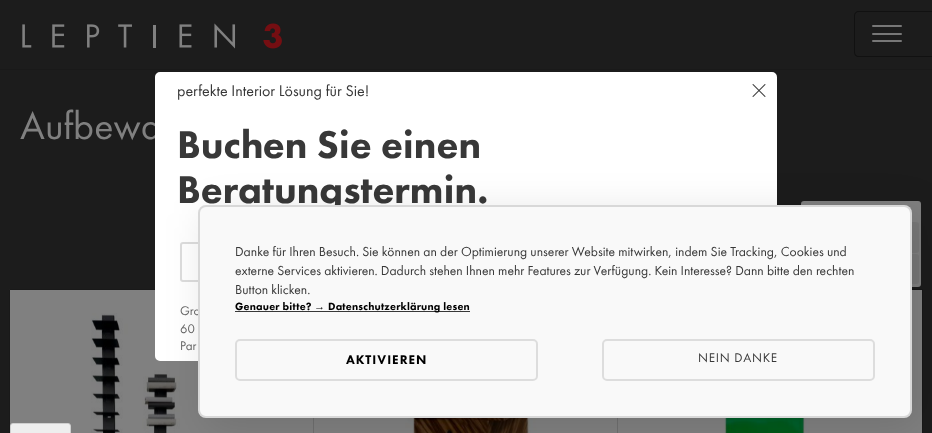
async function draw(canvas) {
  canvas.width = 932;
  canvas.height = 433;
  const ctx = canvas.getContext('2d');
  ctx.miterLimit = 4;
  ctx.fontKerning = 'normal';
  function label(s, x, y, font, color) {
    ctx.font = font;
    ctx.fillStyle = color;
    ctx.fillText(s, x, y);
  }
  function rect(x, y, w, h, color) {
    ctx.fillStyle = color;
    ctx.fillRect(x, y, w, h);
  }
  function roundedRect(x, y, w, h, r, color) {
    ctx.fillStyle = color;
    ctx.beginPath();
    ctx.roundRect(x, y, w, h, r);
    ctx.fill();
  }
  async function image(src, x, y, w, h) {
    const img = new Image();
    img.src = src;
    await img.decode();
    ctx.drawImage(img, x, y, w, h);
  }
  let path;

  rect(0, 0, 932, 433, '#1c1c1c');
  rect(0, 69, 932, 1, '#191919');
  await image('assets/img1.png', 22, 23, 260, 26);
  ctx.fillStyle = '#111';
  path = new Path2D('M859 11H932V57H859C856 57 854 55 854 52V16C854 13 856 11 859 11ZM859 12H932V56H859C857 56 855 54 855 52V16C855 14 857 12 859 12Z');
  ctx.fill(path, 'evenodd');
  ctx.fillStyle = '#1c1c1c';
  ctx.beginPath();
  ctx.roundRect(855, 12, 77, 44, [4, 0, 0, 4]);
  ctx.fill();
  roundedRect(872, 33, 30, 2, 1, '#777');
  roundedRect(872, 25, 30, 2, 1, '#777');
  roundedRect(872, 40, 30, 2, 1, '#777');
  label('Aufbewa', 20, 139, '40px Futura PT', '#808080');
  roundedRect(801, 201, 120, 86, 3, '#808080');
  roundedRect(862, 222, 57, 31, 3, '#787878');
  roundedRect(862, 254, 57, 30, 3, '#787878');
  ctx.fillStyle = '#808080';
  ctx.beginPath();
  ctx.rect(9.5, 289.5, 305, 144);
  ctx.fill();
  ctx.strokeStyle = '#191919';
  ctx.stroke();
  await image('assets/img2.png', 91, 313, 89, 120);
  rect(314, 418, 304, 15, '#808080');
  ctx.strokeStyle = '#00000021';
  ctx.strokeRect(313.5, 289.5, 305, 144);
  await image('assets/img3.png', 405, 418, 132, 15);
  rect(618, 290, 304, 143, '#808080');
  ctx.strokeRect(617.5, 289.5, 305, 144);
  await image('assets/img4.png', 724, 418, 86, 15);
  ctx.fillStyle = '#fff';
  ctx.beginPath();
  ctx.roundRect(156, 73, 620, 287, 4);
  ctx.fill();
  ctx.strokeStyle = '#fff';
  ctx.lineWidth = 2;
  ctx.stroke();
  label('perfekte Interior Lösung für Sie!', 177, 96, '16px Futura PT', '#383838');
  label('Buchen Sie einen', 177, 158, '900 40px Futura PT', '#383838');
  label('Beratungstermin.', 177, 203, '900 40px Futura PT', '#383838');
  ctx.beginPath();
  ctx.roundRect(181, 243, 240, 38, 2);
  ctx.strokeStyle = '#ddd';
  ctx.stroke();
  label('Gro', 180, 315, '13px Futura PT', '#666');
  label('60', 180, 333, '13px Futura PT', '#666');
  label('Par', 180, 350, '13px Futura PT', '#666');
  await image('assets/img5.png', 752, 84, 14, 13);
  ctx.fillStyle = '#0000001f';
  ctx.filter = 'blur(20px)';
  ctx.beginPath();
  ctx.roundRect(206, 213, 714, 213, 8);
  ctx.fill();
  ctx.filter = 'none';
  roundedRect(198, 205, 714, 213, 8, '#f9f9f9');
  ctx.beginPath();
  ctx.roundRect(199, 206, 712, 211, 7);
  ctx.strokeStyle = '#00000021';
  ctx.stroke();
  label('Danke für Ihren Besuch. Sie können an der Optimierung unserer Website mitwirken, indem Sie Tracking, Cookies und', 235, 256, '13.6px Futura PT', '#383838');
  label('externe Services aktivieren. Dadurch stehen Ihnen mehr Features zur Verfügung. Kein Interesse? Dann bitte den rechten', 235, 275, '13.6px Futura PT', '#383838');
  label('Button klicken.', 235, 294, '13.6px Futura PT', '#383838');
  ctx.letterSpacing = '0.2px';
  label('Genauer bitte?', 235, 310, '900 10.9px Futura PT', '#000');
  label('→', 314, 310, 'bold 10.9px Liberation Sans', '#000');
  rect(235, 311, 235, 1, '#383838');
  label('Datenschutzerklärung lesen', 328, 310, '900 10.9px Futura PT', '#000');
  ctx.beginPath();
  ctx.roundRect(236, 340, 301, 40, 4);
  ctx.strokeStyle = '#ddd';
  ctx.stroke();
  ctx.letterSpacing = '1px';
  label('AKTIVIEREN', 346, 364, '900 13px Futura PT', '#000');
  ctx.beginPath();
  ctx.roundRect(603, 340, 271, 40, 4);
  ctx.stroke();
  ctx.letterSpacing = '0.75px';
  label('NEIN DANKE', 698, 362, '13px Futura PT', '#383838');
  ctx.fillStyle = '#eee';
  path = new Path2D('M13 423H68C69.5 423 71 424.5 71 426V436H10V426C10 424.5 11.5 423 13 423Z');
  ctx.fill(path);
  path = new Path2D('M13 423.5H68C69.5 423.5 70.5 424.5 70.5 426V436.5H10.5V426C10.5 424.5 11.5 423.5 13 423.5Z');
  ctx.strokeStyle = '#00000021';
  ctx.lineWidth = 1;
  ctx.stroke(path);
  ctx.letterSpacing = '0px';
  label('-', 107, 420, '14px Futura PT', '#737374');
}

draw(document.querySelector('canvas'));
